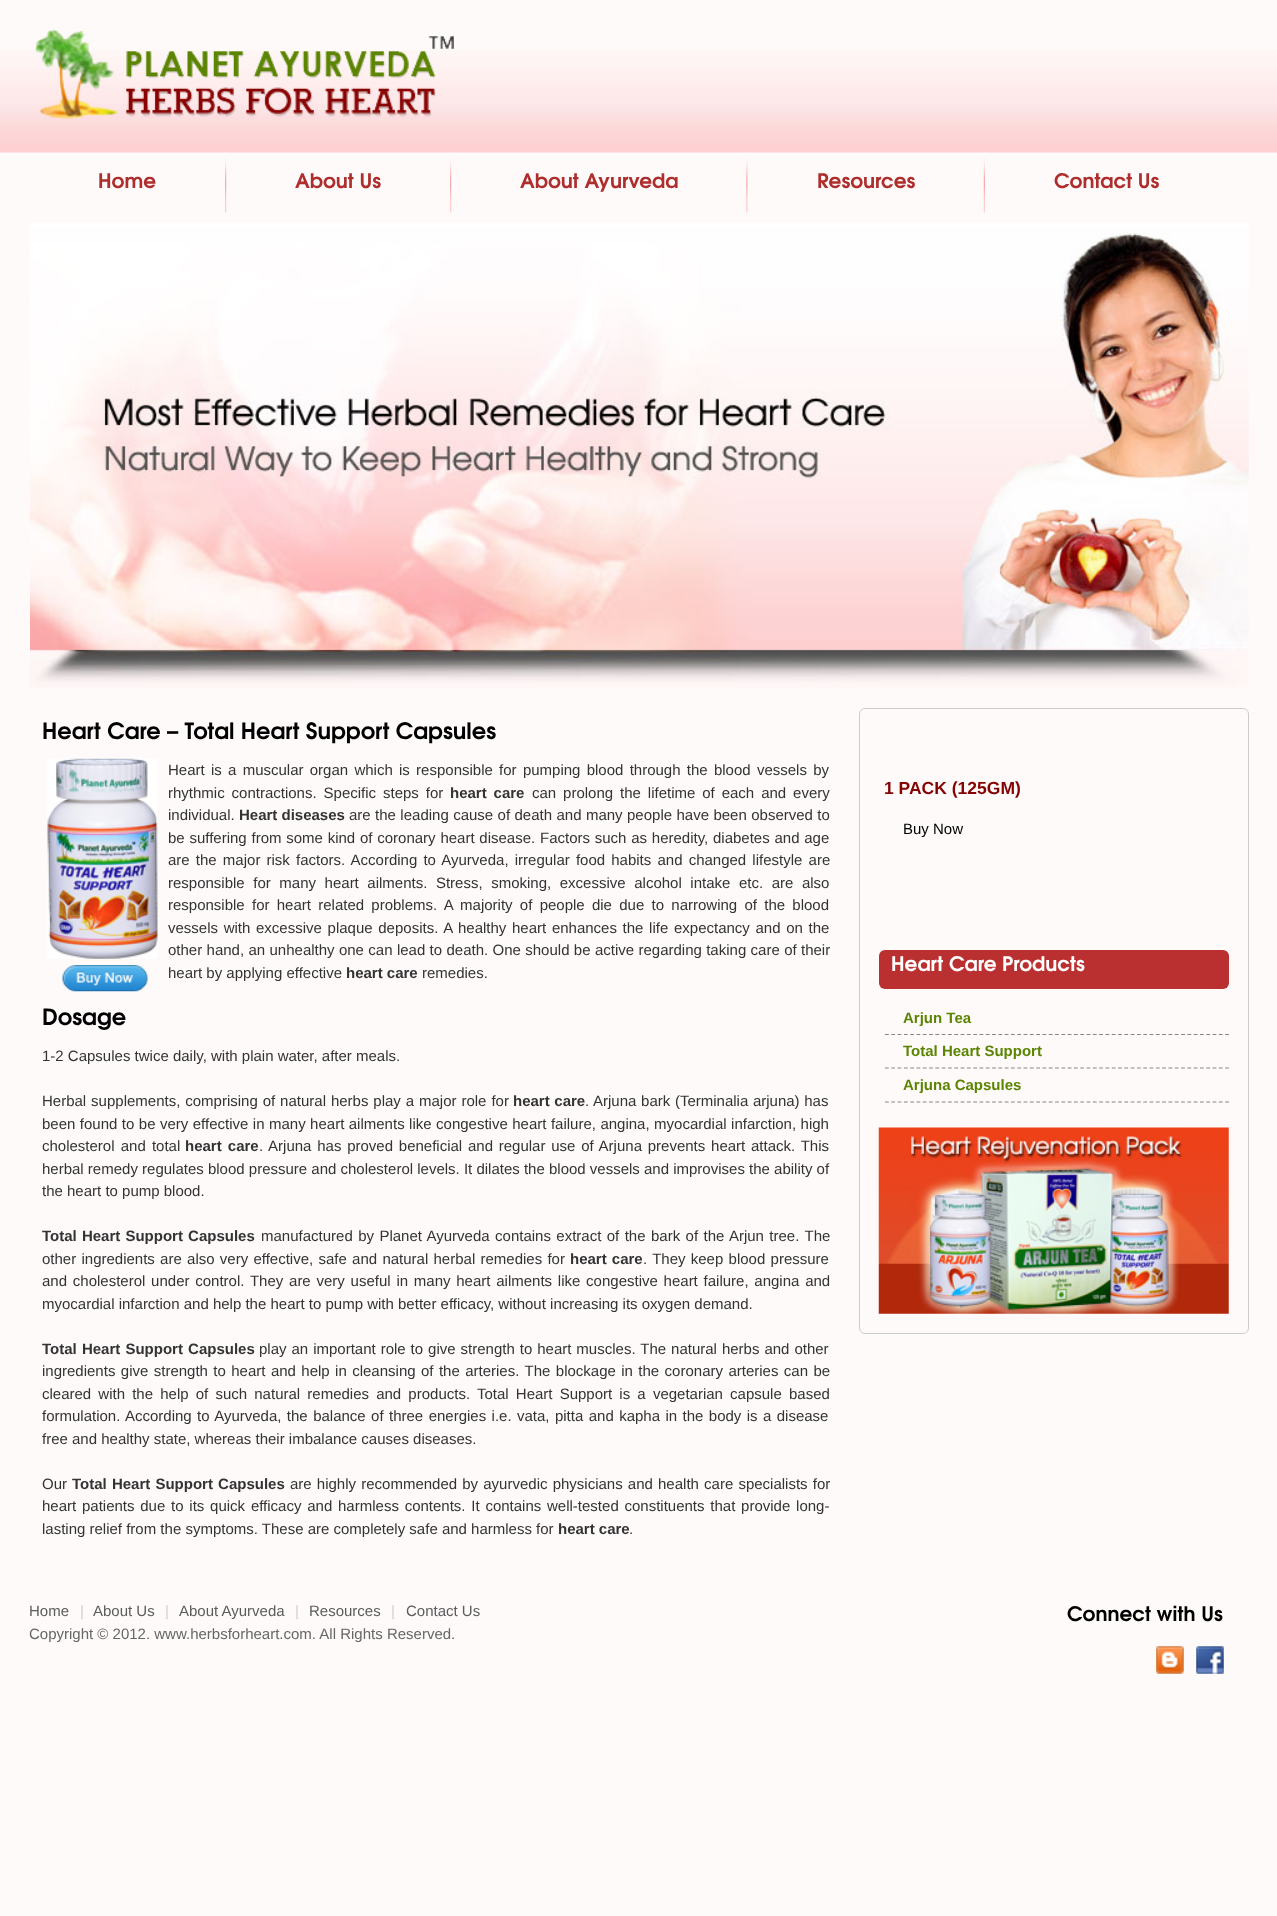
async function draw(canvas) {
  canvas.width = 1277;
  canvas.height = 1916;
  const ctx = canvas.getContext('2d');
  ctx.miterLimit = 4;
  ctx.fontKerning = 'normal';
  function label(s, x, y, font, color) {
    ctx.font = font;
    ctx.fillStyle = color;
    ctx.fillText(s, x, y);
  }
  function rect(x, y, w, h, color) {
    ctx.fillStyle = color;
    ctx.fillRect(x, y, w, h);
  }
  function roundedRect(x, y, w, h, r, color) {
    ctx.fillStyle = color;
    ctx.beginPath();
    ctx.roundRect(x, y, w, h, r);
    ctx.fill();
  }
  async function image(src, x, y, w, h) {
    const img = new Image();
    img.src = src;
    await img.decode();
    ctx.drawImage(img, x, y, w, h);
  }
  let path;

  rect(0, 0, 1277, 1916, '#fefafa');
  await image('assets/img1.png', 0, 50, 1277, 103);
  await image('assets/img2.png', 35, 29, 419, 90);
  await image('assets/img3.png', 225, 152, 2, 61);
  label('Home', 98, 188, 'bold 20px TeX Gyre Adventor', '#ae2d2d');
  await image('assets/img3.png', 450, 152, 2, 61);
  label('About Us', 295, 188, 'bold 20px TeX Gyre Adventor', '#ae2d2d');
  await image('assets/img4.png', 746, 152, 2, 61);
  label('About Ayurveda', 520, 188, 'bold 20px TeX Gyre Adventor', '#ae2d2d');
  await image('assets/img5.png', 983, 152, 2, 61);
  label('Resources', 817, 188, 'bold 20px TeX Gyre Adventor', '#ae2d2d');
  label('Contact Us', 1054, 188, 'bold 20px TeX Gyre Adventor', '#ae2d2d');
  await image('assets/img6.png', 30, 223, 1219, 465);
  label('Heart Care – Total Heart Support Capsules', 42, 739, 'bold 22.5px TeX Gyre Adventor', '#000');
  await image('assets/img7.png', 47, 758, 111, 201);
  await image('assets/img8.png', 62, 965, 86, 27);
  ctx.wordSpacing = '2.1px';
  label('Heart is a muscular organ which is responsible for pumping blood through the blood vessels by', 168, 775, '15px Liberation Sans', '#333');
  ctx.wordSpacing = '2.75px';
  label('rhythmic contractions. Specific steps for', 168, 798, '15px Liberation Sans', '#333');
  label('heart care', 450, 798, 'bold 15px Liberation Sans', '#333');
  label('can prolong the lifetime of each and every', 532, 798, '15px Liberation Sans', '#333');
  ctx.wordSpacing = '0px';
  label('individual.', 168, 820, '15px Liberation Sans', '#333');
  label('Heart diseases', 239, 820, 'bold 15px Liberation Sans', '#333');
  ctx.wordSpacing = '0.25px';
  label('are the leading cause of death and many people have been observed to', 349, 820, '15px Liberation Sans', '#333');
  ctx.wordSpacing = '0.6px';
  label('be suffering from some kind of coronary heart disease. Factors such as heredity, diabetes and age', 168, 843, '15px Liberation Sans', '#333');
  ctx.wordSpacing = '2px';
  label('are the major risk factors. According to Ayurveda, irregular food habits and changed lifestyle are', 168, 865, '15px Liberation Sans', '#333');
  ctx.wordSpacing = '4.4px';
  label('responsible for many heart ailments. Stress, smoking, excessive alcohol intake etc. are also', 168, 888, '15px Liberation Sans', '#333');
  ctx.wordSpacing = '3.1px';
  label('responsible for heart related problems. A majority of people die due to narrowing of the blood', 168, 910, '15px Liberation Sans', '#333');
  ctx.wordSpacing = '1.5px';
  label('vessels with excessive plaque deposits. A healthy heart enhances the life expectancy and on the', 168, 933, '15px Liberation Sans', '#333');
  ctx.wordSpacing = '0.2px';
  label('other hand, an unhealthy one can lead to death. One should be active regarding taking care of their', 168, 955, '15px Liberation Sans', '#333');
  ctx.wordSpacing = '0px';
  label('heart by applying effective', 168, 978, '15px Liberation Sans', '#333');
  label('heart care', 346, 978, 'bold 15px Liberation Sans', '#333');
  label('remedies.', 422, 978, '15px Liberation Sans', '#333');
  label('Dosage', 42, 1025, 'bold 22.5px TeX Gyre Adventor', '#000');
  label('1-2 Capsules twice daily, with plain water, after meals.', 42, 1061, '15px Liberation Sans', '#333');
  ctx.wordSpacing = '0.75px';
  label('Herbal supplements, comprising of natural herbs play a major role for', 42, 1106, '15px Liberation Sans', '#333');
  ctx.wordSpacing = '0.5px';
  label('heart care', 513, 1106, 'bold 15px Liberation Sans', '#333');
  label('. Arjuna bark (Terminalia arjuna) has', 585, 1106, '15px Liberation Sans', '#333');
  ctx.wordSpacing = '0.3px';
  label('been found to be very effective in many heart ailments like congestive heart failure, angina, myocardial infarction, high', 42, 1129, '15px Liberation Sans', '#333');
  ctx.wordSpacing = '2px';
  label('cholesterol and total', 42, 1151, '15px Liberation Sans', '#333');
  label('heart care', 185, 1151, 'bold 15px Liberation Sans', '#333');
  ctx.wordSpacing = '1.6px';
  label('. Arjuna has proved beneficial and regular use of Arjuna prevents heart attack. This', 259, 1151, '15px Liberation Sans', '#333');
  ctx.wordSpacing = '0px';
  label('herbal remedy regulates blood pressure and cholesterol levels. It dilates the blood vessels and improvises the ability of', 42, 1174, '15px Liberation Sans', '#333');
  label('the heart to pump blood.', 42, 1196, '15px Liberation Sans', '#333');
  ctx.wordSpacing = '1px';
  label('Total Heart Support Capsules', 42, 1241, 'bold 15px Liberation Sans', '#333');
  ctx.wordSpacing = '1.25px';
  label('manufactured by Planet Ayurveda contains extract of the bark of the Arjun tree. The', 261, 1241, '15px Liberation Sans', '#333');
  ctx.wordSpacing = '1.1px';
  label('other ingredients are also very effective, safe and natural herbal remedies for', 42, 1264, '15px Liberation Sans', '#333');
  ctx.wordSpacing = '1px';
  label('heart care', 570, 1264, 'bold 15px Liberation Sans', '#333');
  ctx.wordSpacing = '1.1px';
  label('. They keep blood pressure', 643, 1264, '15px Liberation Sans', '#333');
  ctx.wordSpacing = '1.6px';
  label('and cholesterol under control. They are very useful in many heart ailments like congestive heart failure, angina and', 42, 1286, '15px Liberation Sans', '#333');
  ctx.wordSpacing = '0px';
  label('myocardial infarction and help the heart to pump with better efficacy, without increasing its oxygen demand.', 42, 1309, '15px Liberation Sans', '#333');
  ctx.wordSpacing = '1px';
  label('Total Heart Support Capsules', 42, 1354, 'bold 15px Liberation Sans', '#333');
  ctx.wordSpacing = '0.8px';
  label('play an important role to give strength to heart muscles. The natural herbs and other', 259, 1354, '15px Liberation Sans', '#333');
  ctx.wordSpacing = '1.25px';
  label('ingredients give strength to heart and help in cleansing of the arteries. The blockage in the coronary arteries can be', 42, 1376, '15px Liberation Sans', '#333');
  ctx.wordSpacing = '3px';
  label('cleared with the help of such natural remedies and products. Total Heart Support is a vegetarian capsule based', 42, 1399, '15px Liberation Sans', '#333');
  ctx.wordSpacing = '1.25px';
  label('formulation. According to Ayurveda, the balance of three energies i.e. vata, pitta and kapha in the body is a disease', 42, 1421, '15px Liberation Sans', '#333');
  ctx.wordSpacing = '0px';
  label('free and healthy state, whereas their imbalance causes diseases.', 42, 1444, '15px Liberation Sans', '#333');
  label('Our', 42, 1489, '15px Liberation Sans', '#333');
  ctx.wordSpacing = '1px';
  label('Total Heart Support Capsules', 72, 1489, 'bold 15px Liberation Sans', '#333');
  label('are highly recommended by ayurvedic physicians and health care specialists for', 290, 1489, '15px Liberation Sans', '#333');
  ctx.wordSpacing = '1.6px';
  label('heart patients due to its quick efficacy and harmless contents. It contains well-tested constituents that provide long-', 42, 1511, '15px Liberation Sans', '#333');
  ctx.wordSpacing = '0px';
  label('lasting relief from the symptoms. These are completely safe and harmless for', 42, 1534, '15px Liberation Sans', '#333');
  label('heart care', 558, 1534, 'bold 15px Liberation Sans', '#333');
  label('.', 629, 1534, '15px Liberation Sans', '#333');
  ctx.beginPath();
  ctx.roundRect(859.5, 708.5, 389, 625, 5.5);
  ctx.strokeStyle = '#ccc';
  ctx.stroke();
  label('1 PACK (125GM)', 884, 794, 'bold 17.5px Liberation Sans', '#840404');
  label('Buy Now', 903, 834, '15px Liberation Sans', '#000');
  roundedRect(879, 950, 350, 39, 6, '#ba2f2f');
  label('Heart Care Products', 891, 971, 'bold 20px TeX Gyre Adventor', '#fff');
  path = new Path2D('M885 1034.5H1229');
  ctx.strokeStyle = '#848484';
  ctx.lineWidth = 1.2;
  ctx.setLineDash([3.75, 2.55]);
  ctx.stroke(path);
  label('Arjun Tea', 903, 1023, 'bold 15px Liberation Sans', '#5b8501');
  path = new Path2D('M885 1068H1229');
  ctx.stroke(path);
  label('Total Heart Support', 903, 1056, 'bold 15px Liberation Sans', '#5b8501');
  path = new Path2D('M885 1102H1229');
  ctx.stroke(path);
  label('Arjuna Capsules', 903, 1090, 'bold 15px Liberation Sans', '#5b8501');
  await image('assets/img9.png', 878, 1127, 351, 187);
  label('Home', 29, 1616, '15px Liberation Sans', '#5c5c5c');
  label('|', 80, 1616, '15px Liberation Sans', '#cfcfcf');
  label('About Us', 93, 1616, '15px Liberation Sans', '#5c5c5c');
  label('|', 165, 1616, '15px Liberation Sans', '#cfcfcf');
  label('About Ayurveda', 179, 1616, '15px Liberation Sans', '#5c5c5c');
  label('|', 295, 1616, '15px Liberation Sans', '#cfcfcf');
  label('Resources', 309, 1616, '15px Liberation Sans', '#5c5c5c');
  label('|', 391, 1616, '15px Liberation Sans', '#cfcfcf');
  label('Contact Us', 406, 1616, '15px Liberation Sans', '#5c5c5c');
  label('Copyright © 2012. www.herbsforheart.com. All Rights Reserved.', 29, 1639, '15px Liberation Sans', '#666');
  label('Connect with Us', 1067, 1621, 'bold 20px TeX Gyre Adventor', '#000');
  await image('assets/img10.png', 1156, 1646, 28, 28);
  await image('assets/img11.png', 1196, 1646, 28, 28);
}

draw(document.querySelector('canvas'));
